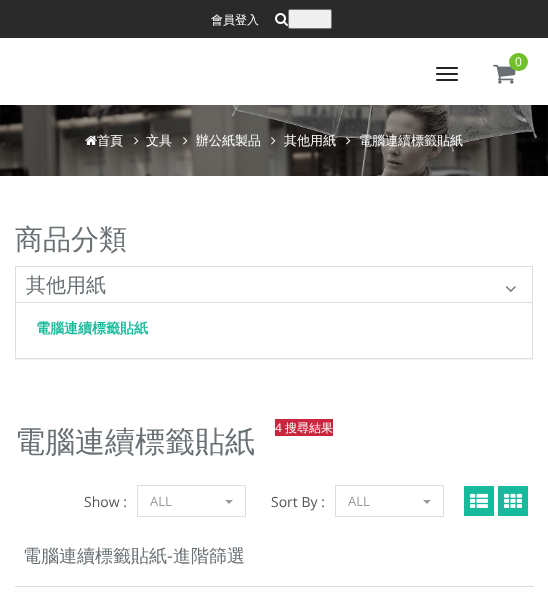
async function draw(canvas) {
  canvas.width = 548;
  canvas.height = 607;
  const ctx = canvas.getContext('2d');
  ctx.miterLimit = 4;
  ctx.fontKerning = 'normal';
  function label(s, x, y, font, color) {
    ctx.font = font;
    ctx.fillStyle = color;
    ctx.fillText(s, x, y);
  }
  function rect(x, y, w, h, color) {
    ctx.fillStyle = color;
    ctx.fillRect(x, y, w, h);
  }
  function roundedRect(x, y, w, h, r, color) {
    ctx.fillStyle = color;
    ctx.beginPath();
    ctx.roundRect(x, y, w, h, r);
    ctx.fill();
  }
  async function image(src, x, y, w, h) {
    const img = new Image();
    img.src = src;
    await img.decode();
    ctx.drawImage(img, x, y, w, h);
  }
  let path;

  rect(0, 0, 548, 607, '#fff');
  rect(0, 0, 548, 38, '#2a2a2a');
  label('會員登入', 211, 24, '500 12px WenQuanYi Zen Hei', '#fff');
  await image('assets/img1.png', 275, 13, 13, 13);
  ctx.fillStyle = '#efefef';
  ctx.beginPath();
  ctx.roundRect(288.5, 9.5, 43, 19, 1.5);
  ctx.fill();
  ctx.strokeStyle = '#767676';
  ctx.stroke();
  await image('assets/img2.png', 493, 64, 23, 20);
  roundedRect(509, 53, 19, 18, 9, '#72c02c');
  label('0', 515, 66, '12px Open Sans', '#fff');
  roundedRect(436, 67, 22, 2, 1, '#222');
  roundedRect(436, 73, 22, 2, 1, '#222');
  roundedRect(436, 79, 22, 2, 1, '#222');
  await image('assets/img3.png', 0, 105, 548, 71);
  await image('assets/img4.png', 85, 135, 12, 10);
  label('首頁', 97, 145, '500 13px WenQuanYi Zen Hei', '#fff');
  await image('assets/img5.png', 134, 137, 5, 8);
  label('文具', 146, 145, '500 13px WenQuanYi Zen Hei', '#fff');
  await image('assets/img6.png', 183, 137, 5, 8);
  label('辦公紙製品', 196, 145, '500 13px WenQuanYi Zen Hei', '#fff');
  await image('assets/img7.png', 271, 137, 5, 8);
  label('其他用紙', 284, 145, '500 13px WenQuanYi Zen Hei', '#fff');
  await image('assets/img8.png', 346, 137, 5, 8);
  label('電腦連續標籤貼紙', 359, 145, '500 13px WenQuanYi Zen Hei', '#fff');
  label('商品分類', 15, 249, '500 28px WenQuanYi Zen Hei', '#687074');
  ctx.save();
  ctx.beginPath();
  ctx.rect(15, 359, 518, 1);
  ctx.clip();
  ctx.fillStyle = '#0000000d';
  ctx.filter = 'blur(0.5px)';
  ctx.beginPath();
  ctx.rect(15, 267, 518, 93);
  ctx.fill();
  ctx.filter = 'none';
  ctx.restore();
  ctx.strokeStyle = '#dedede';
  ctx.strokeRect(15.5, 266.5, 517, 92);
  rect(16, 302, 516, 1, '#dedede');
  label('其他用紙', 26, 292, '500 20px WenQuanYi Zen Hei', '#687074');
  await image('assets/img9.png', 505, 286, 11, 6);
  label('電腦連續標籤貼紙', 36, 333, 'bold 14px WenQuanYi Zen Hei', '#18ba9b');
  label('電腦連續標籤貼紙', 15, 452, '500 30px WenQuanYi Zen Hei', '#687074');
  rect(275, 419, 58, 17, '#c9253c');
  label('4', 275, 432, '12px Open Sans', '#fff');
  label('搜尋結果', 285, 432, '500 12px WenQuanYi Zen Hei', '#fff');
  label('Show :', 84, 507, '14px Open Sans', '#555');
  ctx.strokeRect(137.5, 485.5, 108, 31);
  label('ALL', 150, 506, '13px Open Sans', '#999');
  path = new Path2D('M225 500H233L229 504Z');
  ctx.fill(path);
  label('Sort By :', 271, 507, '14px Open Sans', '#555');
  ctx.strokeRect(335.5, 485.5, 108, 31);
  label('ALL', 348, 506, '13px Open Sans', '#999');
  path = new Path2D('M423 500H431L427 504Z');
  ctx.fill(path);
  rect(464, 486, 30, 30, '#18ba9b');
  await image('assets/img10.png', 470, 493, 18, 15);
  rect(498, 486, 30, 30, '#18ba9b');
  await image('assets/img11.png', 504, 493, 18, 15);
  label('電腦連續標籤貼紙', 23, 562, '500 18px WenQuanYi Zen Hei', '#687074');
  label('-', 167, 562, '18px Open Sans', '#687074');
  label('進階篩選', 173, 562, '500 18px WenQuanYi Zen Hei', '#687074');
  rect(15, 586, 519, 1, '#ddd');
}

draw(document.querySelector('canvas'));
